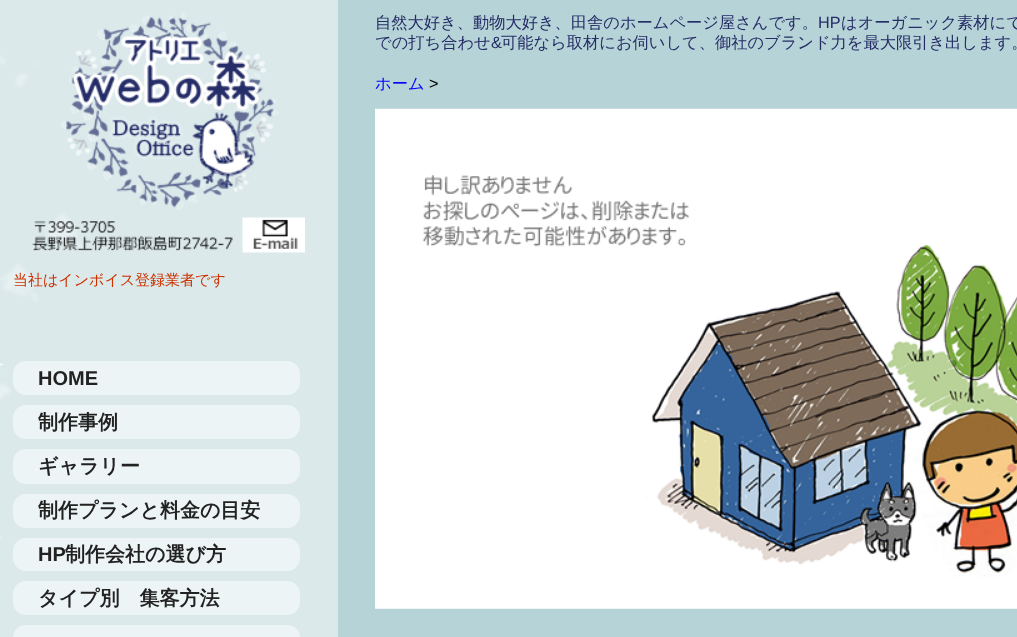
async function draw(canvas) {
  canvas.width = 1017;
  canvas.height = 637;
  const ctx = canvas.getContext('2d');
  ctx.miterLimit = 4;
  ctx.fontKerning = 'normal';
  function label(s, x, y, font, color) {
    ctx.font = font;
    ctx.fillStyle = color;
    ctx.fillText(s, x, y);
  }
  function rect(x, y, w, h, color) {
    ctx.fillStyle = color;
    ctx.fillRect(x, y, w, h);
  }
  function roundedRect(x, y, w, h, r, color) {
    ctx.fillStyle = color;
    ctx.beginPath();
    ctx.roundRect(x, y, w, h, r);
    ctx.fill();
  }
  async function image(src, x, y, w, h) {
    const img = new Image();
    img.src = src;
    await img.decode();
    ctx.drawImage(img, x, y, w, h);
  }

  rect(0, 0, 1017, 637, '#b6d3d7');
  rect(0, 0, 338, 637, '#dbe9eb');
  await image('assets/img1.png', 0, 53, 164, 486);
  label('自然大好き、動物大好き、田舎のホームページ屋さんです。', 375, 28, '500 16.25px WenQuanYi Zen Hei', '#252c66');
  label('HP', 818, 28, '16.25px Liberation Sans', '#252c66');
  label('はオーガニック素材にて', 841, 28, '500 16.25px WenQuanYi Zen Hei', '#252c66');
  label('での打ち合わせ', 375, 48, '500 16.25px WenQuanYi Zen Hei', '#252c66');
  label('&', 491, 48, '16.25px Liberation Sans', '#252c66');
  label('可能なら取材にお伺いして、御社のブランド力を最大限引き出します。', 501, 48, '500 16.25px WenQuanYi Zen Hei', '#252c66');
  label('ホーム', 375, 89, '500 16.25px WenQuanYi Zen Hei', '#00f');
  label('>', 429, 89, '16.25px Liberation Sans', '#000');
  await image('assets/img2.png', 375, 108, 642, 501);
  await image('assets/img3.png', 60, 12, 219, 198);
  await image('assets/img4.png', 32, 217, 273, 36);
  label('当社はインボイス登録業者です', 13, 285, '500 15px WenQuanYi Zen Hei', '#c30');
  roundedRect(13, 361, 287, 34, 13, '#ffffff80');
  label('HOME', 38, 385, 'bold 20px Liberation Sans', '#222');
  roundedRect(13, 405, 287, 34, 13, '#edf4f5');
  label('制作事例', 38, 429, 'bold 20px WenQuanYi Zen Hei', '#222');
  roundedRect(13, 449, 287, 35, 13, '#ffffff80');
  label('ギャラリー', 38, 473, 'bold 20px WenQuanYi Zen Hei', '#222');
  roundedRect(13, 494, 287, 34, 13, '#edf4f5');
  label('制作プランと料金の目安', 38, 517, 'bold 20px WenQuanYi Zen Hei', '#222');
  roundedRect(13, 538, 287, 33, 13, '#edf4f5');
  label('HP', 38, 561, 'bold 20px Liberation Sans', '#222');
  label('制作会社の選び方', 65, 561, 'bold 20px WenQuanYi Zen Hei', '#222');
  roundedRect(13, 581, 287, 34, 13, '#edf4f5');
  label('タイプ別　集客方法', 38, 605, 'bold 20px WenQuanYi Zen Hei', '#222');
  roundedRect(13, 625, 287, 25, 13, '#edf4f5');
}

draw(document.querySelector('canvas'));
